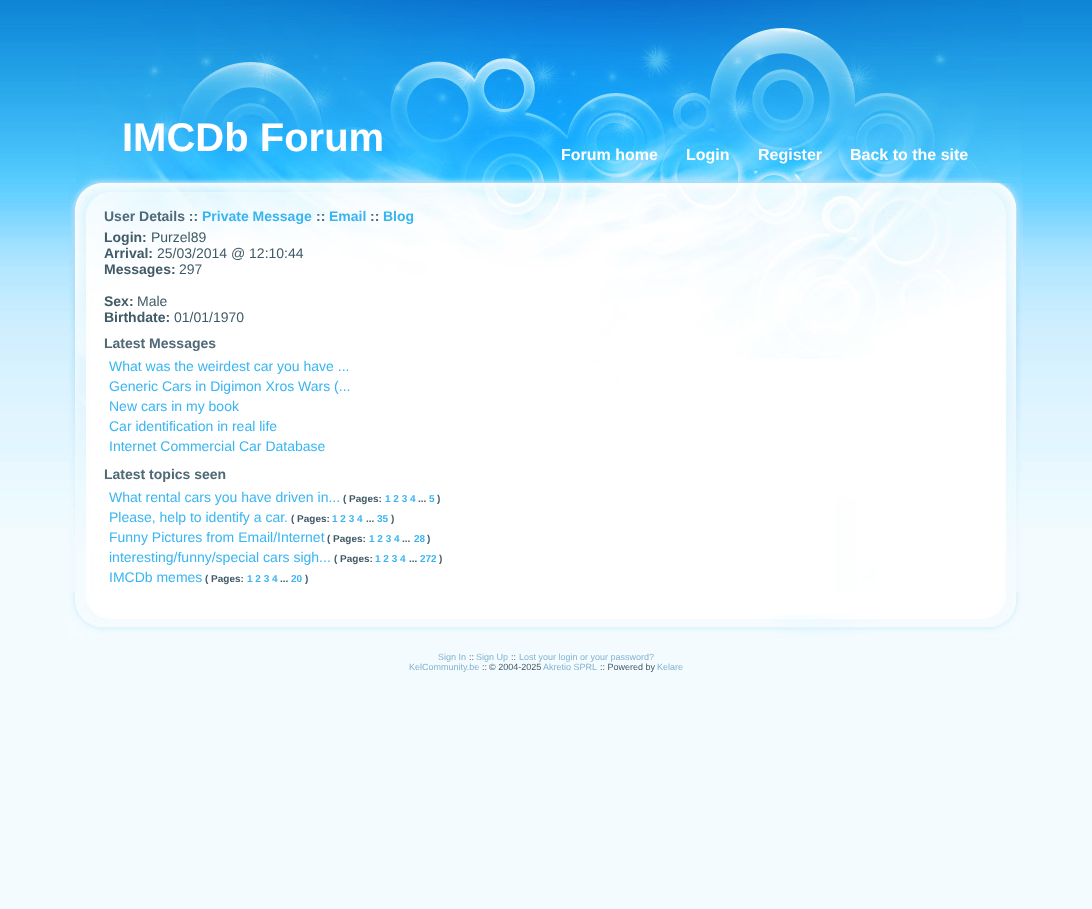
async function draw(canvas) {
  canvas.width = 1092;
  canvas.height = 909;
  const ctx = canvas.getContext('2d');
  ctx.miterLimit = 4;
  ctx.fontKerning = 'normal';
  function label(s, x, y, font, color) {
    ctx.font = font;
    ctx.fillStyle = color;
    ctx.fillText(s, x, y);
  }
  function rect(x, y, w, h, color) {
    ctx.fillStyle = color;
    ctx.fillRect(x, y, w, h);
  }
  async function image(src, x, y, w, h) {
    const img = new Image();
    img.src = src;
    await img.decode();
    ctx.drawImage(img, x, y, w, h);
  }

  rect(0, 0, 1092, 909, '#f4fbff');
  await image('assets/img1.png', 0, 0, 1092, 528);
  await image('assets/img2.png', 76, 0, 945, 183);
  label('IMCDb Forum', 122, 151, 'bold 40px Liberation Sans', '#fff');
  label('Forum home', 561, 160, 'bold 16px Liberation Sans', '#fff');
  label('Login', 686, 160, 'bold 16px Liberation Sans', '#fff');
  label('Register', 758, 160, 'bold 16px Liberation Sans', '#fff');
  label('Back to the site', 850, 160, 'bold 16px Liberation Sans', '#fff');
  await image('assets/img3.png', 69, 183, 954, 409);
  label('User Details ::', 104, 221, 'bold 14px Liberation Sans', '#4f6977');
  label('Private Message', 202, 221, 'bold 14px Liberation Sans', '#38b5f1');
  label('::', 316, 221, 'bold 14px Liberation Sans', '#4f6977');
  label('Email', 329, 221, 'bold 14px Liberation Sans', '#38b5f1');
  label('::', 370, 221, 'bold 14px Liberation Sans', '#4f6977');
  label('Blog', 383, 221, 'bold 14px Liberation Sans', '#38b5f1');
  label('Login:', 104, 242, 'bold 14px Liberation Sans', '#405a67');
  label('Purzel89', 151, 242, '14px Liberation Sans', '#405a67');
  label('Arrival:', 104, 258, 'bold 14px Liberation Sans', '#405a67');
  label('25/03/2014 @ 12:10:44', 157, 258, '14px Liberation Sans', '#405a67');
  label('Messages:', 104, 274, 'bold 14px Liberation Sans', '#405a67');
  label('297', 179, 274, '14px Liberation Sans', '#405a67');
  label('Sex:', 104, 306, 'bold 14px Liberation Sans', '#405a67');
  label('Male', 137, 306, '14px Liberation Sans', '#405a67');
  label('Birthdate:', 104, 322, 'bold 14px Liberation Sans', '#405a67');
  label('01/01/1970', 174, 322, '14px Liberation Sans', '#405a67');
  label('Latest Messages', 104, 348, 'bold 14px Liberation Sans', '#4f6977');
  label('What was the weirdest car you have ...', 109, 371, '14px Liberation Sans', '#38b5f1');
  label('Generic Cars in Digimon Xros Wars (...', 109, 391, '14px Liberation Sans', '#38b5f1');
  label('New cars in my book', 109, 411, '14px Liberation Sans', '#38b5f1');
  label('Car identification in real life', 109, 431, '14px Liberation Sans', '#38b5f1');
  label('Internet Commercial Car Database', 109, 451, '14px Liberation Sans', '#38b5f1');
  label('Latest topics seen', 104, 479, 'bold 14px Liberation Sans', '#4f6977');
  label('What rental cars you have driven in...', 109, 502, '14px Liberation Sans', '#38b5f1');
  label('( Pages:', 343, 502, 'bold 10px Liberation Sans', '#405a67');
  label('1 2 3 4', 385, 502, 'bold 10px Liberation Sans', '#38b5f1');
  label('...', 418, 502, 'bold 10px Liberation Sans', '#405a67');
  label('5', 429, 502, 'bold 10px Liberation Sans', '#38b5f1');
  label(')', 437, 502, 'bold 10px Liberation Sans', '#405a67');
  label('Please, help to identify a car.', 109, 522, '14px Liberation Sans', '#38b5f1');
  label('( Pages:', 291, 522, 'bold 10px Liberation Sans', '#405a67');
  label('1 2 3 4', 332, 522, 'bold 10px Liberation Sans', '#38b5f1');
  label('...', 366, 522, 'bold 10px Liberation Sans', '#405a67');
  label('35', 377, 522, 'bold 10px Liberation Sans', '#38b5f1');
  label(')', 391, 522, 'bold 10px Liberation Sans', '#405a67');
  label('Funny Pictures from Email/Internet', 109, 542, '14px Liberation Sans', '#38b5f1');
  label('( Pages:', 327, 542, 'bold 10px Liberation Sans', '#405a67');
  label('1 2 3 4', 369, 542, 'bold 10px Liberation Sans', '#38b5f1');
  label('...', 402, 542, 'bold 10px Liberation Sans', '#405a67');
  label('28', 414, 542, 'bold 10px Liberation Sans', '#38b5f1');
  label(')', 427, 542, 'bold 10px Liberation Sans', '#405a67');
  label('interesting/funny/special cars sigh...', 109, 562, '14px Liberation Sans', '#38b5f1');
  label('( Pages:', 334, 562, 'bold 10px Liberation Sans', '#405a67');
  label('1 2 3 4', 375, 562, 'bold 10px Liberation Sans', '#38b5f1');
  label('...', 409, 562, 'bold 10px Liberation Sans', '#405a67');
  label('272', 420, 562, 'bold 10px Liberation Sans', '#38b5f1');
  label(')', 439, 562, 'bold 10px Liberation Sans', '#405a67');
  label('IMCDb memes', 109, 582, '14px Liberation Sans', '#38b5f1');
  label('( Pages:', 205, 582, 'bold 10px Liberation Sans', '#405a67');
  label('1 2 3 4', 247, 582, 'bold 10px Liberation Sans', '#38b5f1');
  label('...', 280, 582, 'bold 10px Liberation Sans', '#405a67');
  label('20', 291, 582, 'bold 10px Liberation Sans', '#38b5f1');
  label(')', 305, 582, 'bold 10px Liberation Sans', '#405a67');
  await image('assets/img4.png', 69, 592, 952, 45);
  label('Sign In', 438, 660, '9px Liberation Sans', '#83b3ce');
  label('::', 469, 660, '9px Liberation Sans', '#405a67');
  label('Sign Up', 476, 660, '9px Liberation Sans', '#83b3ce');
  label('::', 511, 660, '9px Liberation Sans', '#405a67');
  label('Lost your login or your password?', 519, 660, '9px Liberation Sans', '#83b3ce');
  label('KelCommunity.be', 409, 670, '9px Liberation Sans', '#83b3ce');
  label('::', 482, 670, '9px Liberation Sans', '#405a67');
  label('© 2004-2025', 489, 670, '9px Liberation Sans', '#405a67');
  label('Akretio SPRL', 543, 670, '9px Liberation Sans', '#83b3ce');
  label(':: Powered by', 600, 670, '9px Liberation Sans', '#405a67');
  label('Kelare', 657, 670, '9px Liberation Sans', '#83b3ce');
}

draw(document.querySelector('canvas'));
